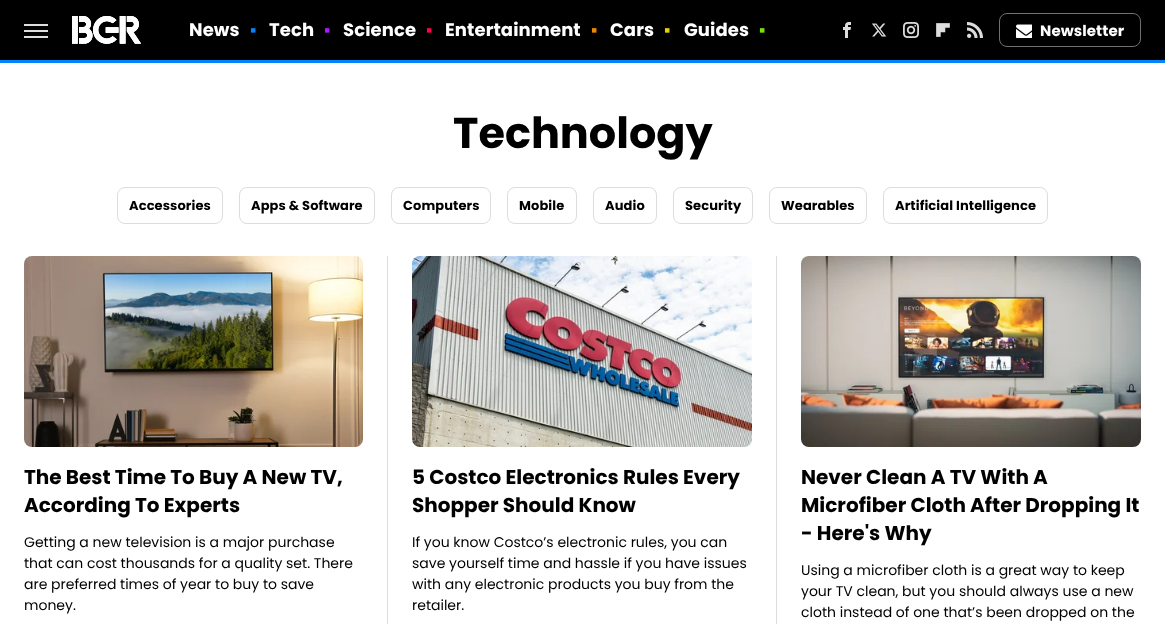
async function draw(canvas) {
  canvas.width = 1165;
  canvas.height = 624;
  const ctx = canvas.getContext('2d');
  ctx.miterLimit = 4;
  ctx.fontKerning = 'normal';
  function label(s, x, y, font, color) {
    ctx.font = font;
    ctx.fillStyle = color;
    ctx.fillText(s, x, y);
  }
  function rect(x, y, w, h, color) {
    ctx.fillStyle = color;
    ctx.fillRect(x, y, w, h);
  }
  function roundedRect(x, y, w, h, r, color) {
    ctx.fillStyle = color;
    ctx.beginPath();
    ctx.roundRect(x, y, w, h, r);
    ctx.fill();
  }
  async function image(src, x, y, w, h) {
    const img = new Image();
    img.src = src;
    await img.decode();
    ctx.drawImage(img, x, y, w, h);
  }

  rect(0, 0, 1165, 624, '#fff');
  rect(0, 0, 1165, 60, '#000');
  rect(0, 60, 1165, 3, '#0284ff');
  rect(24, 24, 24, 2, '#ddd');
  rect(24, 30, 24, 2, '#ddd');
  rect(24, 36, 24, 2, '#ddd');
  await image('assets/img1.png', 72, 16, 69, 28);
  ctx.letterSpacing = '0.1px';
  label('News', 189, 36, 'bold 18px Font', '#fff');
  label('▪', 250, 36, '18px Liberation Sans', '#0284ff');
  label('Tech', 269, 36, 'bold 18px Font', '#fff');
  label('▪', 324, 36, '18px Liberation Sans', '#ab19ff');
  label('Science', 343, 36, 'bold 18px Font', '#fff');
  label('▪', 426, 36, '18px Liberation Sans', '#ff024a');
  label('Entertainment', 445, 36, 'bold 18px Font', '#fff');
  label('▪', 591, 36, '18px Liberation Sans', '#f38600');
  label('Cars', 610, 36, 'bold 18px Font', '#fff');
  label('▪', 664, 36, '18px Liberation Sans', '#e2d300');
  label('Guides', 684, 36, 'bold 18px Font', '#fff');
  label('▪', 759, 36, '18px Liberation Sans', '#79e200');
  await image('assets/img2.png', 843, 22, 8, 16);
  await image('assets/img3.png', 872, 23, 15, 14);
  await image('assets/img4.png', 903, 22, 16, 16);
  await image('assets/img5.png', 936, 23, 14, 14);
  await image('assets/img6.png', 967, 22, 16, 16);
  ctx.beginPath();
  ctx.roundRect(999.5, 13.5, 141, 33, 7.5);
  ctx.strokeStyle = '#707070';
  ctx.stroke();
  await image('assets/img7.png', 1016, 24, 16, 14);
  label('Newsletter', 1040, 36, 'bold 15px Font', '#fff');
  ctx.letterSpacing = '0px';
  label('Technology', 453, 148, 'bold 43px Font', '#000');
  ctx.beginPath();
  ctx.roundRect(117.5, 187.5, 105, 36, 7.5);
  ctx.strokeStyle = '#ddd';
  ctx.stroke();
  ctx.letterSpacing = '0.1px';
  label('Accessories', 129, 210, 'bold 13px Font', '#000');
  ctx.beginPath();
  ctx.roundRect(239.5, 187.5, 135, 36, 7.5);
  ctx.stroke();
  label('Apps & Software', 251, 210, 'bold 13px Font', '#000');
  ctx.beginPath();
  ctx.roundRect(391.5, 187.5, 99, 36, 7.5);
  ctx.stroke();
  label('Computers', 403, 210, 'bold 13px Font', '#000');
  ctx.beginPath();
  ctx.roundRect(507.5, 187.5, 69, 36, 7.5);
  ctx.stroke();
  label('Mobile', 519, 210, 'bold 13px Font', '#000');
  ctx.beginPath();
  ctx.roundRect(593.5, 187.5, 63, 36, 7.5);
  ctx.stroke();
  label('Audio', 605, 210, 'bold 13px Font', '#000');
  ctx.beginPath();
  ctx.roundRect(673.5, 187.5, 79, 36, 7.5);
  ctx.stroke();
  label('Security', 685, 210, 'bold 13px Font', '#000');
  ctx.beginPath();
  ctx.roundRect(769.5, 187.5, 97, 36, 7.5);
  ctx.stroke();
  label('Wearables', 781, 210, 'bold 13px Font', '#000');
  ctx.beginPath();
  ctx.roundRect(883.5, 187.5, 164, 36, 7.5);
  ctx.stroke();
  label('Artificial Intelligence', 895, 210, 'bold 13px Font', '#000');
  rect(387, 256, 1, 368, '#ddd');
  roundedRect(24, 256, 339, 191, 8, '#f9f9f9');
  await image('assets/img8.png', 24, 256, 339, 191);
  ctx.letterSpacing = '0px';
  label('The Best Time To Buy A New TV,', 24, 484, 'bold 20px Font', '#000');
  label('According To Experts', 24, 512, 'bold 20px Font', '#000');
  label('Getting a new television is a major purchase', 24, 547, '14px poppins', '#000');
  label('that can cost thousands for a quality set. There', 24, 568, '14px poppins', '#000');
  label('are preferred times of year to buy to save', 24, 589, '14px poppins', '#000');
  label('money.', 24, 610, '14px poppins', '#000');
  rect(776, 256, 1, 368, '#ddd');
  roundedRect(412, 256, 340, 191, 8, '#f9f9f9');
  await image('assets/img9.png', 412, 256, 340, 191);
  label('5 Costco Electronics Rules Every', 412, 484, 'bold 20px Font', '#000');
  label('Shopper Should Know', 412, 512, 'bold 20px Font', '#000');
  label('If you know Costco’s electronic rules, you can', 412, 547, '14px poppins', '#000');
  label('save yourself time and hassle if you have issues', 412, 568, '14px poppins', '#000');
  label('with any electronic products you buy from the', 412, 589, '14px poppins', '#000');
  label('retailer.', 412, 610, '14px poppins', '#000');
  roundedRect(801, 256, 340, 191, 8, '#f9f9f9');
  await image('assets/img10.png', 801, 256, 340, 191);
  label('Never Clean A TV With A', 801, 484, 'bold 20px Font', '#000');
  label('Microfiber Cloth After Dropping It', 801, 512, 'bold 20px Font', '#000');
  label('- Here\'s Why', 801, 540, 'bold 20px Font', '#000');
  label('Using a microfiber cloth is a great way to keep', 801, 575, '14px poppins', '#000');
  label('your TV clean, but you should always use a new', 801, 596, '14px poppins', '#000');
  label('cloth instead of one that’s been dropped on the', 801, 617, '14px poppins', '#000');
}

draw(document.querySelector('canvas'));
